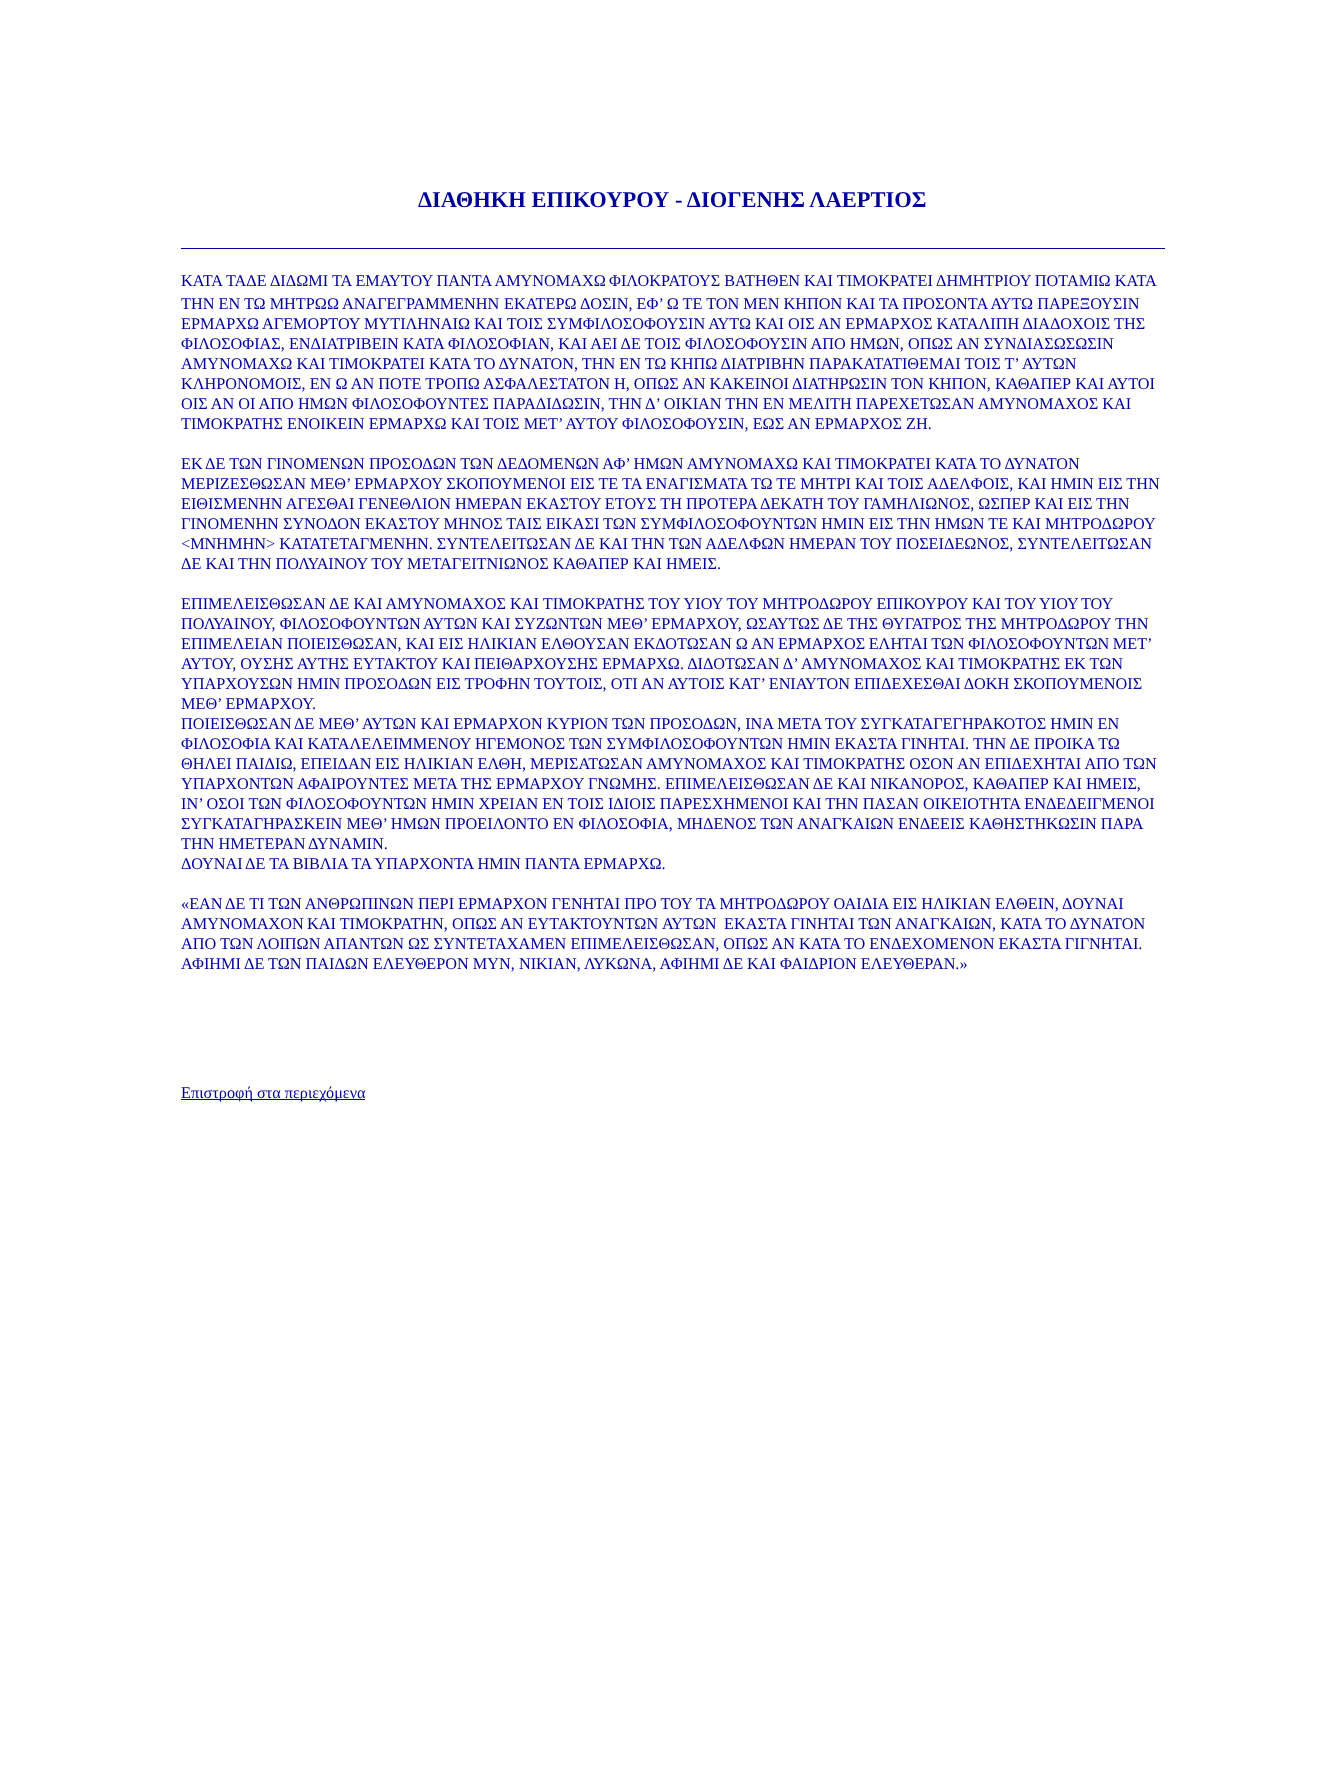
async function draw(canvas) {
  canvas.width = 1344;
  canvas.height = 1788;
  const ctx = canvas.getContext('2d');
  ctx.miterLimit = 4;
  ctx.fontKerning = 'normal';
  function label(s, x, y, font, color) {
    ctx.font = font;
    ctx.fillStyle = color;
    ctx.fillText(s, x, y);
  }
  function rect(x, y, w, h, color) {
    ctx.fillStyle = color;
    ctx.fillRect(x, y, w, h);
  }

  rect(0, 0, 1344, 1788, '#fff');
  label('ΔΙΑΘΗΚΗ ΕΠΙΚΟΥΡΟΥ - ΔΙΟΓΕΝΗΣ ΛΑΕΡΤΙΟΣ', 418, 207, 'bold 22.5px Liberation Serif', '#009');
  rect(181, 248, 984, 1, '#009');
  label('ΚΑΤΑ', 181, 286, '16.25px Liberation Serif', '#009');
  label('ΤΑΔΕ ΔΙΔΩΜΙ ΤΑ ΕΜΑΥΤΟΥ ΠΑΝΤΑ ΑΜΥΝΟΜΑΧΩ', 226, 286, '16.25px Liberation Serif', '#009');
  label('ΦΙΛΟΚΡΑΤΟΥΣ ΒΑΤΗΘΕΝ ΚΑΙ ΤΙΜΟΚΡΑΤΕΙ', 609, 286, '16.25px Liberation Serif', '#009');
  label('ΔΗΜΗΤΡΙΟΥ ΠΟΤΑΜΙΩ ΚΑΤΑ', 936, 286, '16.25px Liberation Serif', '#009');
  label('ΤΗΝ ΕΝ ΤΩ ΜΗΤΡΩΩ', 181, 309, '16.25px Liberation Serif', '#009');
  label('ΑΝΑΓΕΓΡΑΜΜΕΝΗΝ', 342, 309, '16.25px Liberation Serif', '#009');
  label('ΕΚΑΤΕΡΩ', 504, 309, '16.25px Liberation Serif', '#009');
  label('ΔΟΣΙΝ, ΕΦ’ Ω ΤΕ ΤΟΝ ΜΕΝ ΚΗΠΟΝ ΚΑΙ ΤΑ ΠΡΟΣΟΝΤΑ ΑΥΤΩ ΠΑΡΕΞΟΥΣΙΝ', 580, 309, '16.25px Liberation Serif', '#009');
  label('ΕΡΜΑΡΧΩ', 181, 329, '16.25px Liberation Serif', '#009');
  label('ΑΓΕΜΟΡΤΟΥ ΜΥΤΙΛΗΝΑΙΩ ΚΑΙ ΤΟΙΣ ΣΥΜΦΙΛΟΣΟΦΟΥΣΙΝ ΑΥΤΩ ΚΑΙ ΟΙΣ ΑΝ ΕΡΜΑΡΧΟΣ ΚΑΤΑΛΙΠΗ ΔΙΑΔΟΧΟΙΣ ΤΗΣ', 262, 329, '16.25px Liberation Serif', '#009');
  label('ΦΙΛΟΣΟΦΙΑΣ, ΕΝΔΙΑΤΡΙΒΕΙΝ ΚΑΤΑ ΦΙΛΟΣΟΦΙΑΝ, ΚΑΙ ΑΕΙ ΔΕ ΤΟΙΣ ΦΙΛΟΣΟΦΟΥΣΙΝ ΑΠΟ ΗΜΩΝ, ΟΠΩΣ ΑΝ ΣΥΝΔΙΑΣΩΣΩΣΙΝ', 181, 349, '16.25px Liberation Serif', '#009');
  label('ΑΜΥΝΟΜΑΧΩ ΚΑΙ', 181, 369, '16.25px Liberation Serif', '#009');
  label('ΤΙΜΟΚΡΑΤΕΙ ΚΑΤΑ ΤΟ ΔΥΝΑΤΟΝ, ΤΗΝ ΕΝ ΤΩ', 329, 369, '16.25px Liberation Serif', '#009');
  label('ΚΗΠΩ ΔΙΑΤΡΙΒΗΝ ΠΑΡΑΚΑΤΑΤΙΘΕΜΑΙ ΤΟΙΣ Τ’', 670, 369, '16.25px Liberation Serif', '#009');
  label('ΑΥΤΩΝ', 1022, 369, '16.25px Liberation Serif', '#009');
  label('ΚΛΗΡΟΝΟΜΟΙΣ, ΕΝ Ω ΑΝ ΠΟΤΕ ΤΡΟΠΩ', 181, 389, '16.25px Liberation Serif', '#009');
  label('ΑΣΦΑΛΕΣΤΑΤΟΝ Η, ΟΠΩΣ ΑΝ ΚΑΚΕΙΝΟΙ', 483, 389, '16.25px Liberation Serif', '#009');
  label('ΔΙΑΤΗΡΩΣΙΝ ΤΟΝ ΚΗΠΟΝ, ΚΑΘΑΠΕΡ ΚΑΙ ΑΥΤΟΙ', 792, 389, '16.25px Liberation Serif', '#009');
  label('ΟΙΣ ΑΝ ΟΙ ΑΠΟ ΗΜΩΝ ΦΙΛΟΣΟΦΟΥΝΤΕΣ ΠΑΡΑΔΙΔΩΣΙΝ, ΤΗΝ Δ’ ΟΙΚΙΑΝ ΤΗΝ ΕΝ ΜΕΛΙΤΗ ΠΑΡΕΧΕΤΩΣΑΝ ΑΜΥΝΟΜΑΧΟΣ ΚΑΙ', 181, 409, '16.25px Liberation Serif', '#009');
  label('ΤΙΜΟΚΡΑΤΗΣ ΕΝΟΙΚΕΙΝ ΕΡΜΑΡΧΩ ΚΑΙ ΤΟΙΣ ΜΕΤ’ ΑΥΤΟΥ ΦΙΛΟΣΟΦΟΥΣΙΝ, ΕΩΣ ΑΝ ΕΡΜΑΡΧΟΣ ΖΗ.', 181, 429, '16.25px Liberation Serif', '#009');
  label('ΕΚ', 181, 469, '16.25px Liberation Serif', '#009');
  label('ΔΕ ΤΩΝ ΓΙΝΟΜΕΝΩΝ ΠΡΟΣΟΔΩΝ ΤΩΝ', 205, 469, '16.25px Liberation Serif', '#009');
  label('ΔΕΔΟΜΕΝΩΝ ΑΦ’ ΗΜΩΝ ΑΜΥΝΟΜΑΧΩ ΚΑΙ ΤΙΜΟΚΡΑΤΕΙ ΚΑΤΑ ΤΟ ΔΥΝΑΤΟΝ', 497, 469, '16.25px Liberation Serif', '#009');
  label('ΜΕΡΙΖΕΣΘΩΣΑΝ ΜΕΘ’ ΕΡΜΑΡΧΟΥ ΣΚΟΠΟΥΜΕΝΟΙ ΕΙΣ ΤΕ ΤΑ ΕΝΑΓΙΣΜΑΤΑ ΤΩ ΤΕ ΜΗΤΡΙ ΚΑΙ ΤΟΙΣ ΑΔΕΛΦΟΙΣ, ΚΑΙ ΗΜΙΝ ΕΙΣ ΤΗΝ', 181, 489, '16.25px Liberation Serif', '#009');
  label('ΕΙΘΙΣΜΕΝΗΝ ΑΓΕΣΘΑΙ ΓΕΝΕΘΛΙΟΝ ΗΜΕΡΑΝ ΕΚΑΣΤΟΥ ΕΤΟΥΣ ΤΗ ΠΡΟΤΕΡΑ ΔΕΚΑΤΗ ΤΟΥ ΓΑΜΗΛΙΩΝΟΣ, ΩΣΠΕΡ ΚΑΙ ΕΙΣ ΤΗΝ', 181, 509, '16.25px Liberation Serif', '#009');
  label('ΓΙΝΟΜΕΝΗΝ ΣΥΝΟΔΟΝ ΕΚΑΣΤΟΥ ΜΗΝΟΣ ΤΑΙΣ ΕΙΚΑΣΙ ΤΩΝ ΣΥΜΦΙΛΟΣΟΦΟΥΝΤΩΝ ΗΜΙΝ ΕΙΣ', 181, 529, '16.25px Liberation Serif', '#009');
  label('ΤΗΝ ΗΜΩΝ ΤΕ ΚΑΙ ΜΗΤΡΟΔΩΡΟΥ', 897, 529, '16.25px Liberation Serif', '#009');
  label('<ΜΝΗΜΗΝ> ΚΑΤΑΤΕΤΑΓΜΕΝΗΝ. ΣΥΝΤΕΛΕΙΤΩΣΑΝ ΔΕ ΚΑΙ ΤΗΝ ΤΩΝ ΑΔΕΛΦΩΝ ΗΜΕΡΑΝ ΤΟΥ ΠΟΣΕΙΔΕΩΝΟΣ, ΣΥΝΤΕΛΕΙΤΩΣΑΝ', 181, 549, '16.25px Liberation Serif', '#009');
  label('ΔΕ ΚΑΙ ΤΗΝ ΠΟΛΥΑΙΝΟΥ ΤΟΥ ΜΕΤΑΓΕΙΤΝΙΩΝΟΣ ΚΑΘΑΠΕΡ ΚΑΙ ΗΜΕΙΣ.', 181, 569, '16.25px Liberation Serif', '#009');
  label('ΕΠΙΜΕΛΕΙΣΘΩΣΑΝ', 181, 609, '16.25px Liberation Serif', '#009');
  label('ΔΕ ΚΑΙ ΑΜΥΝΟΜΑΧΟΣ ΚΑΙ ΤΙΜΟΚΡΑΤΗΣ ΤΟΥ ΥΙΟΥ ΤΟΥ ΜΗΤΡΟΔΩΡΟΥ ΕΠΙΚΟΥΡΟΥ ΚΑΙ ΤΟΥ', 329, 609, '16.25px Liberation Serif', '#009');
  ctx.wordSpacing = '-1px';
  label('ΥΙΟΥ ΤΟΥ', 1039, 609, '16.25px Liberation Serif', '#009');
  ctx.wordSpacing = '0px';
  label('ΠΟΛΥΑΙΝΟΥ, ΦΙΛΟΣΟΦΟΥΝΤΩΝ', 181, 629, '16.25px Liberation Serif', '#009');
  label('ΑΥΤΩΝ ΚΑΙ ΣΥΖΩΝΤΩΝ ΜΕΘ’ ΕΡΜΑΡΧΟΥ, ΩΣΑΥΤΩΣ ΔΕ ΤΗΣ ΘΥΓΑΤΡΟΣ ΤΗΣ ΜΗΤΡΟΔΩΡΟΥ', 423, 629, '16.25px Liberation Serif', '#009');
  label('ΤΗΝ', 1115, 629, '16.25px Liberation Serif', '#009');
  label('ΕΠΙΜΕΛΕΙΑΝ ΠΟΙΕΙΣΘΩΣΑΝ, ΚΑΙ ΕΙΣ ΗΛΙΚΙΑΝ ΕΛΘΟΥΣΑΝ ΕΚΔΟΤΩΣΑΝ Ω ΑΝ', 181, 649, '16.25px Liberation Serif', '#009');
  ctx.wordSpacing = '-0.5px';
  label('ΕΡΜΑΡΧΟΣ ΕΛΗΤΑΙ ΤΩΝ ΦΙΛΟΣΟΦΟΥΝΤΩΝ ΜΕΤ’', 778, 649, '16.25px Liberation Serif', '#009');
  ctx.wordSpacing = '0px';
  label('ΑΥΤΟΥ, ΟΥΣΗΣ ΑΥΤΗΣ ΕΥΤΑΚΤΟΥ ΚΑΙ', 181, 669, '16.25px Liberation Serif', '#009');
  label('ΠΕΙΘΑΡΧΟΥΣΗΣ ΕΡΜΑΡΧΩ. ΔΙΔΟΤΩΣΑΝ Δ’', 474, 669, '16.25px Liberation Serif', '#009');
  label('ΑΜΥΝΟΜΑΧΟΣ ΚΑΙ ΤΙΜΟΚΡΑΤΗΣ ΕΚ ΤΩΝ', 801, 669, '16.25px Liberation Serif', '#009');
  label('ΥΠΑΡΧΟΥΣΩΝ ΗΜΙΝ ΠΡΟΣΟΔΩΝ ΕΙΣ ΤΡΟΦΗΝ', 181, 689, '16.25px Liberation Serif', '#009');
  label('ΤΟΥΤΟΙΣ, ΟΤΙ ΑΝ ΑΥΤΟΙΣ ΚΑΤ’ ΕΝΙΑΥΤΟΝ ΕΠΙΔΕΧΕΣΘΑΙ ΔΟΚΗ ΣΚΟΠΟΥΜΕΝΟΙΣ', 534, 689, '16.25px Liberation Serif', '#009');
  label('ΜΕΘ’ ΕΡΜΑΡΧΟΥ.', 181, 709, '16.25px Liberation Serif', '#009');
  label('ΠΟΙΕΙΣΘΩΣΑΝ', 181, 729, '16.25px Liberation Serif', '#009');
  label('ΔΕ ΜΕΘ’ ΑΥΤΩΝ ΚΑΙ ΕΡΜΑΡΧΟΝ ΚΥΡΙΟΝ ΤΩΝ ΠΡΟΣΟΔΩΝ, ΙΝΑ ΜΕΤΑ ΤΟΥ ΣΥΓΚΑΤΑΓΕΓΗΡΑΚΟΤΟΣ ΗΜΙΝ ΕΝ', 294, 729, '16.25px Liberation Serif', '#009');
  label('ΦΙΛΟΣΟΦΙΑ ΚΑΙ ΚΑΤΑΛΕΛΕΙΜΜΕΝΟΥ ΗΓΕΜΟΝΟΣ ΤΩΝ ΣΥΜΦΙΛΟΣΟΦΟΥΝΤΩΝ ΗΜΙΝ ΕΚΑΣΤΑ ΓΙΝΗΤΑΙ. ΤΗΝ ΔΕ ΠΡΟΙΚΑ ΤΩ', 181, 749, '16.25px Liberation Serif', '#009');
  label('ΘΗΛΕΙ ΠΑΙΔΙΩ, ΕΠΕΙΔΑΝ', 181, 769, '16.25px Liberation Serif', '#009');
  label('ΕΙΣ ΗΛΙΚΙΑΝ ΕΛΘΗ, ΜΕΡΙΣΑΤΩΣΑΝ', 375, 769, '16.25px Liberation Serif', '#009');
  label('ΑΜΥΝΟΜΑΧΟΣ ΚΑΙ ΤΙΜΟΚΡΑΤΗΣ ΟΣΟΝ ΑΝ ΕΠΙΔΕΧΗΤΑΙ ΑΠΟ ΤΩΝ', 646, 769, '16.25px Liberation Serif', '#009');
  label('ΥΠΑΡΧΟΝΤΩΝ', 181, 789, '16.25px Liberation Serif', '#009');
  label('ΑΦΑΙΡΟΥΝΤΕΣ ΜΕΤΑ ΤΗΣ ΕΡΜΑΡΧΟΥ ΓΝΩΜΗΣ. ΕΠΙΜΕΛΕΙΣΘΩΣΑΝ ΔΕ ΚΑΙ ΝΙΚΑΝΟΡΟΣ, ΚΑΘΑΠΕΡ ΚΑΙ ΗΜΕΙΣ,', 297, 789, '16.25px Liberation Serif', '#009');
  label('ΙΝ’ ΟΣΟΙ ΤΩΝ ΦΙΛΟΣΟΦΟΥΝΤΩΝ ΗΜΙΝ ΧΡΕΙΑΝ ΕΝ ΤΟΙΣ ΙΔΙΟΙΣ ΠΑΡΕΣΧΗΜΕΝΟΙ ΚΑΙ ΤΗΝ ΠΑΣΑΝ ΟΙΚΕΙΟΤΗΤΑ ΕΝΔΕΔΕΙΓΜΕΝΟΙ', 181, 809, '16.25px Liberation Serif', '#009');
  label('ΣΥΓΚΑΤΑΓΗΡΑΣΚΕΙΝ ΜΕΘ’ ΗΜΩΝ ΠΡΟΕΙΛΟΝΤΟ ΕΝ ΦΙΛΟΣΟΦΙΑ, ΜΗΔΕΝΟΣ ΤΩΝ ΑΝΑΓΚΑΙΩΝ', 181, 829, '16.25px Liberation Serif', '#009');
  label('ΕΝΔΕΕΙΣ ΚΑΘΗΣΤΗΚΩΣΙΝ ΠΑΡΑ', 898, 829, '16.25px Liberation Serif', '#009');
  label('ΤΗΝ ΗΜΕΤΕΡΑΝ', 181, 849, '16.25px Liberation Serif', '#009');
  label('ΔΥΝΑΜΙΝ.', 308, 849, '16.25px Liberation Serif', '#009');
  label('ΔΟΥΝΑΙ', 181, 869, '16.25px Liberation Serif', '#009');
  label('ΔΕ ΤΑ ΒΙΒΛΙΑ ΤΑ ΥΠΑΡΧΟΝΤΑ ΗΜΙΝ ΠΑΝΤΑ ΕΡΜΑΡΧΩ.', 245, 869, '16.25px Liberation Serif', '#009');
  label('«ΕΑΝ', 181, 909, '16.25px Liberation Serif', '#009');
  label('ΔΕ ΤΙ ΤΩΝ ΑΝΘΡΩΠΙΝΩΝ ΠΕΡΙ ΕΡΜΑΡΧΟΝ ΓΕΝΗΤΑΙ ΠΡΟ ΤΟΥ ΤΑ ΜΗΤΡΟΔΩΡΟΥ ΟΑΙΔΙΑ ΕΙΣ ΗΛΙΚΙΑΝ ΕΛΘΕΙΝ, ΔΟΥΝΑΙ', 225, 909, '16.25px Liberation Serif', '#009');
  label('ΑΜΥΝΟΜΑΧΟΝ', 181, 929, '16.25px Liberation Serif', '#009');
  label('ΚΑΙ ΤΙΜΟΚΡΑΤΗΝ, ΟΠΩΣ ΑΝ ΕΥΤΑΚΤΟΥΝΤΩΝ', 307, 929, '16.25px Liberation Serif', '#009');
  label('ΑΥΤΩΝ', 662, 929, '16.25px Liberation Serif', '#009');
  label('ΕΚΑΣΤΑ ΓΙΝΗΤΑΙ ΤΩΝ ΑΝΑΓΚΑΙΩΝ, ΚΑΤΑ ΤΟ ΔΥΝΑΤΟΝ', 724, 929, '16.25px Liberation Serif', '#009');
  label('ΑΠΟ ΤΩΝ ΛΟΙΠΩΝ ΑΠΑΝΤΩΝ ΩΣ ΣΥΝΤΕΤΑΧΑΜΕΝ ΕΠΙΜΕΛΕΙΣΘΩΣΑΝ, ΟΠΩΣ ΑΝ ΚΑΤΑ ΤΟ ΕΝΔΕΧΟΜΕΝΟΝ ΕΚΑΣΤΑ ΓΙΓΝΗΤΑΙ.', 181, 949, '16.25px Liberation Serif', '#009');
  label('ΑΦΙΗΜΙ ΔΕ', 181, 969, '16.25px Liberation Serif', '#009');
  label('ΤΩΝ ΠΑΙΔΩΝ ΕΛΕΥΘΕΡΟΝ ΜΥΝ, ΝΙΚΙΑΝ,', 268, 969, '16.25px Liberation Serif', '#009');
  label('ΛΥΚΩΝΑ, ΑΦΙΗΜΙ ΔΕ ΚΑΙ ΦΑΙΔΡΙΟΝ ΕΛΕΥΘΕΡΑΝ.»', 584, 969, '16.25px Liberation Serif', '#009');
  rect(181, 1099, 184, 1, '#009');
  label('Επιστροφή στα περιεχόμενα', 181, 1098, '16.25px Liberation Serif', '#009');
}

draw(document.querySelector('canvas'));
